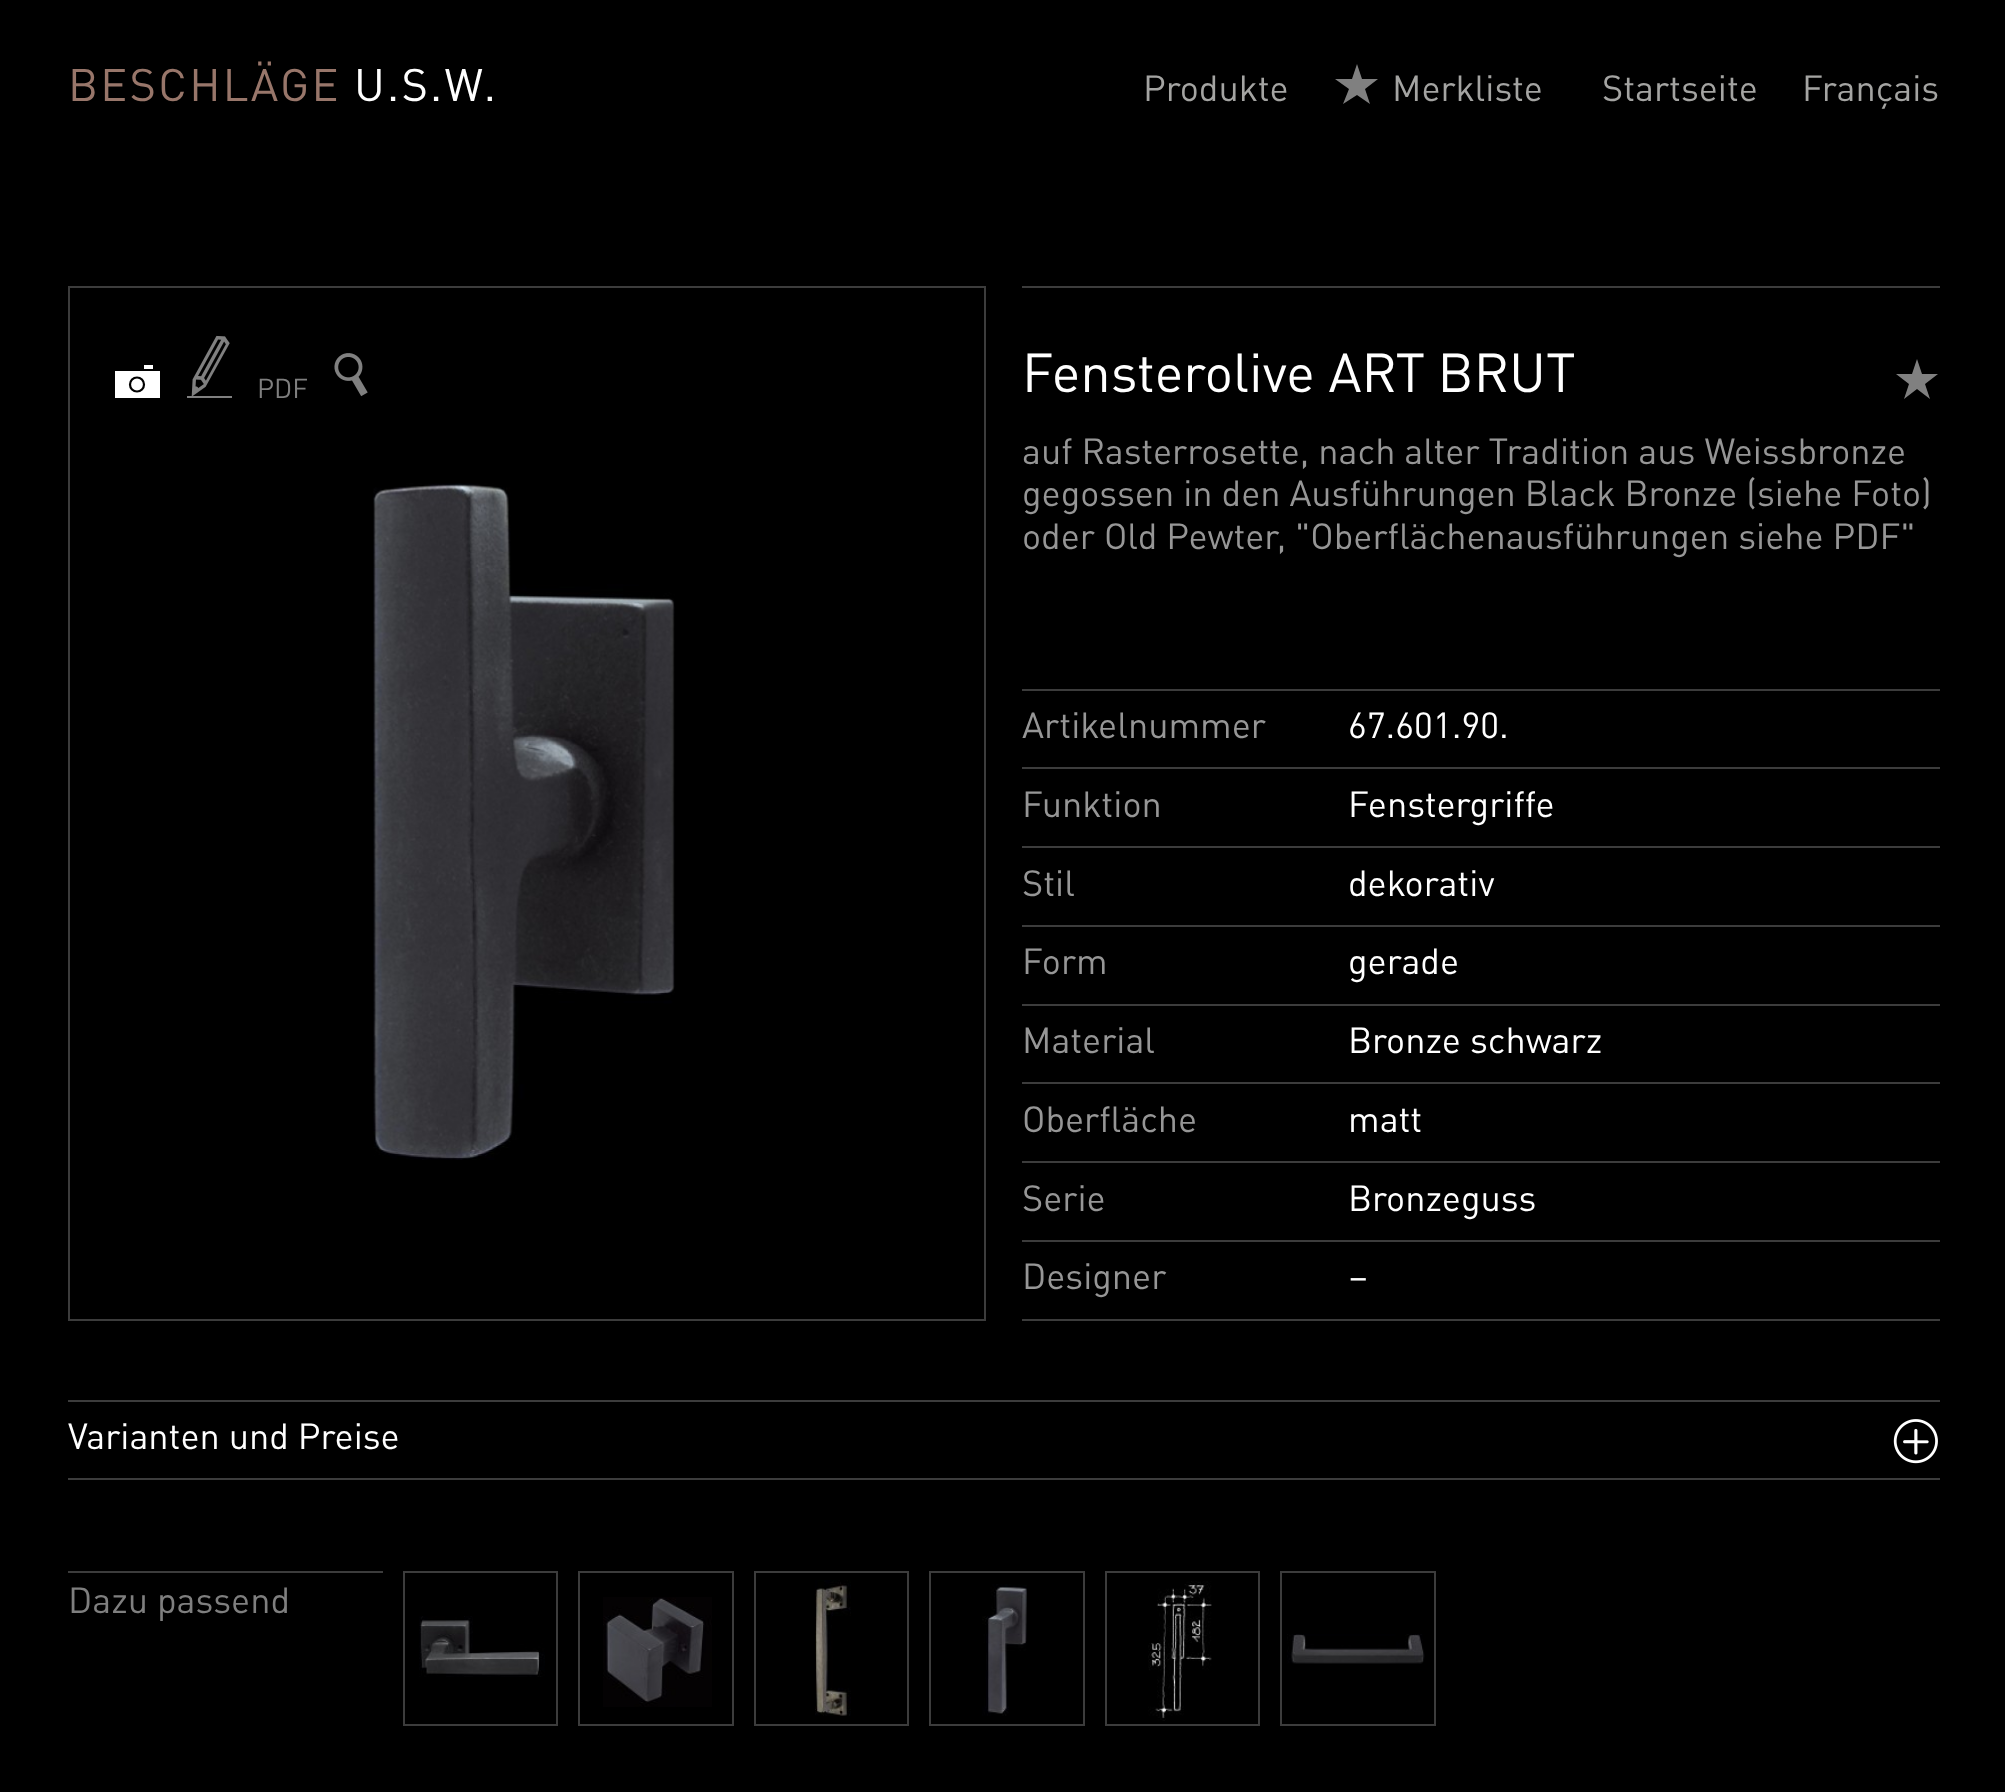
async function draw(canvas) {
  canvas.width = 2005;
  canvas.height = 1792;
  const ctx = canvas.getContext('2d');
  ctx.miterLimit = 4;
  ctx.fontKerning = 'normal';
  function label(s, x, y, font, color) {
    ctx.font = font;
    ctx.fillStyle = color;
    ctx.fillText(s, x, y);
  }
  function rect(x, y, w, h, color) {
    ctx.fillStyle = color;
    ctx.fillRect(x, y, w, h);
  }
  async function image(src, x, y, w, h) {
    const img = new Image();
    img.src = src;
    await img.decode();
    ctx.drawImage(img, x, y, w, h);
  }
  let path;

  rect(0, 0, 2005, 1792, '#000');
  ctx.letterSpacing = '2.25px';
  label('BESCHLÄGE', 68, 101, '45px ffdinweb', '#98766a');
  label('U.S.W.', 354, 101, '45px ffdinweb', '#fff');
  ctx.letterSpacing = '0px';
  label('Produkte', 1143, 101, '36px ffdinweb', '#a4a4a2');
  ctx.fillStyle = '#808080';
  path = new Path2D('M1357 64L1362 79H1378L1365 89L1370 104L1357 95L1343 104L1349 89L1335 79H1352Z');
  ctx.fill(path);
  label('Merkliste', 1392, 101, '36px ffdinweb', '#a4a4a2');
  label('Startseite', 1602, 101, '36px ffdinweb', '#a4a4a2');
  label('Français', 1802, 101, '36px ffdinweb', '#a4a4a2');
  ctx.strokeStyle = '#3c3c3c';
  ctx.lineWidth = 2;
  ctx.strokeRect(69, 287, 916, 1033);
  rect(115, 371, 45, 27, '#fff');
  rect(144, 365, 9, 4, '#fff');
  ctx.beginPath();
  ctx.arc(137, 384.5, 7, 0, 2 * Math.PI);
  ctx.strokeStyle = '#000';
  ctx.lineWidth = 2.2;
  ctx.stroke();
  await image('assets/img1.png', 187, 335, 45, 63);
  label('PDF', 257, 398, '27px ffdinweb', '#7f7f7f');
  await image('assets/img2.png', 334, 353, 34, 44);
  await image('assets/img3.png', 373, 483, 302, 677);
  rect(1022, 286, 918, 2, '#3c3c3c');
  label('Fensterolive ART BRUT', 1022, 392, '54px ffdinweb', '#fff');
  ctx.fillStyle = '#808080';
  path = new Path2D('M1917 359L1922 374H1938L1925 384L1930 399L1917 389L1904 399L1909 384L1896 374H1912Z');
  ctx.fill(path);
  label('auf Rasterrosette, nach alter Tradition aus Weissbronze', 1022, 464, '36px ffdinweb', '#969696');
  label('gegossen in den Ausführungen Black Bronze (siehe Foto)', 1022, 506, '36px ffdinweb', '#969696');
  label('oder Old Pewter, "Oberflächenausführungen siehe PDF"', 1022, 549, '36px ffdinweb', '#969696');
  label('Artikelnummer', 1022, 738, '36px ffdinweb', '#969696');
  rect(1022, 689, 918, 2, '#3c3c3c');
  label('67.601.90.', 1348, 738, '36px ffdinweb', '#fff');
  label('Funktion', 1022, 817, '36px ffdinweb', '#969696');
  rect(1022, 767, 918, 2, '#3c3c3c');
  label('Fenstergriffe', 1348, 817, '36px ffdinweb', '#fff');
  label('Stil', 1022, 896, '36px ffdinweb', '#969696');
  rect(1022, 846, 918, 2, '#3c3c3c');
  label('dekorativ', 1348, 896, '36px ffdinweb', '#fff');
  label('Form', 1022, 974, '36px ffdinweb', '#969696');
  rect(1022, 925, 918, 2, '#3c3c3c');
  label('gerade', 1348, 974, '36px ffdinweb', '#fff');
  label('Material', 1022, 1053, '36px ffdinweb', '#969696');
  rect(1022, 1004, 918, 2, '#3c3c3c');
  label('Bronze schwarz', 1348, 1053, '36px ffdinweb', '#fff');
  label('Oberfläche', 1022, 1132, '36px ffdinweb', '#969696');
  rect(1022, 1082, 918, 2, '#3c3c3c');
  label('matt', 1348, 1132, '36px ffdinweb', '#fff');
  label('Serie', 1022, 1211, '36px ffdinweb', '#969696');
  rect(1022, 1161, 918, 2, '#3c3c3c');
  label('Bronzeguss', 1348, 1211, '36px ffdinweb', '#fff');
  label('Designer', 1022, 1289, '36px ffdinweb', '#969696');
  rect(1022, 1240, 918, 2, '#3c3c3c');
  rect(1022, 1319, 918, 2, '#3c3c3c');
  label('–', 1348, 1289, '36px ffdinweb', '#fff');
  rect(68, 1400, 1872, 2, '#3c3c3c');
  rect(68, 1478, 1872, 2, '#3c3c3c');
  label('Varianten und Preise', 68, 1449, '36px ffdinweb', '#fff');
  await image('assets/img4.png', 1893, 1419, 45, 45);
  rect(68, 1571, 315, 2, '#3c3c3c');
  label('Dazu passend', 68, 1613, '36px ffdinweb', '#7f7f7f');
  ctx.strokeStyle = '#3c3c3c';
  ctx.lineWidth = 2;
  ctx.strokeRect(404, 1572, 153, 153);
  await image('assets/img5.png', 419, 1616, 126, 61);
  ctx.strokeRect(579, 1572, 154, 153);
  await image('assets/img6.png', 603, 1597, 109, 110);
  ctx.strokeRect(755, 1572, 153, 153);
  await image('assets/img7.png', 815, 1580, 36, 136);
  ctx.strokeRect(930, 1572, 154, 153);
  await image('assets/img8.png', 982, 1584, 45, 132);
  ctx.strokeRect(1106, 1572, 153, 153);
  await image('assets/img9.png', 1148, 1581, 64, 140);
  ctx.strokeRect(1281, 1572, 154, 153);
  await image('assets/img10.png', 1287, 1634, 138, 30);
}

draw(document.querySelector('canvas'));
